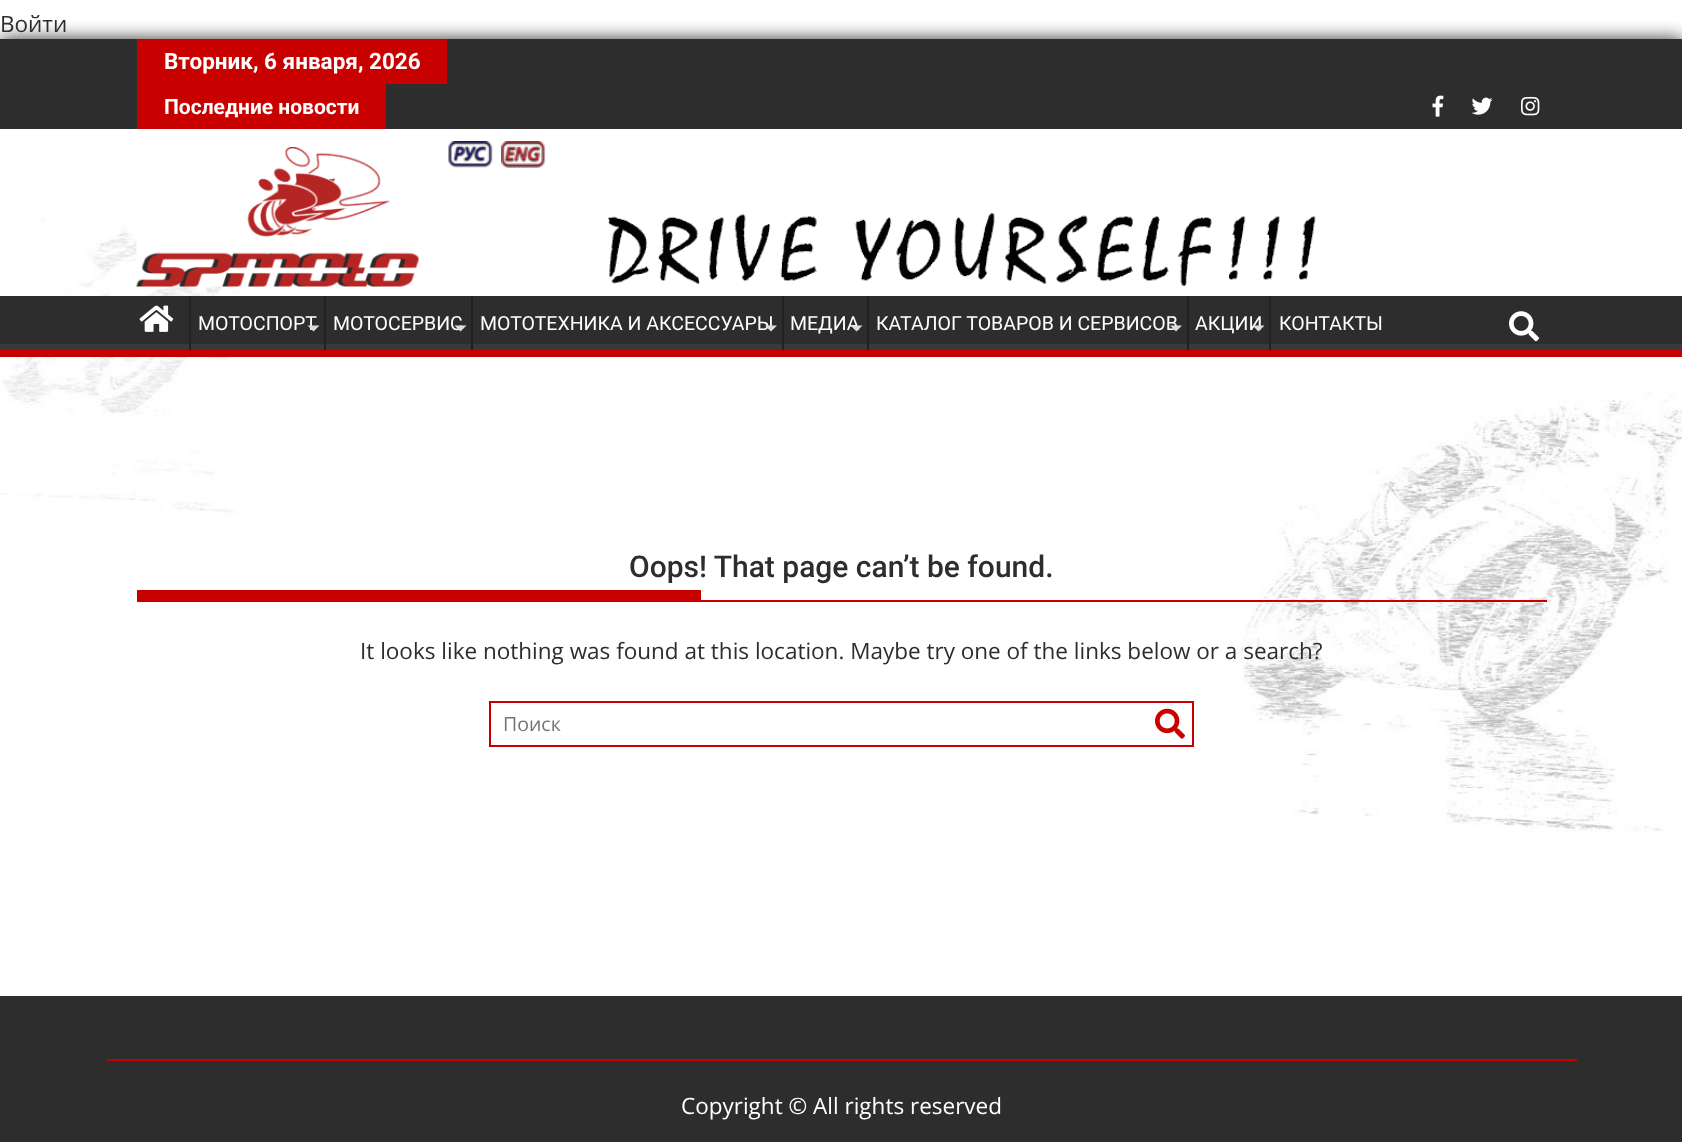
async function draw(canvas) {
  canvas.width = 1682;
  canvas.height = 1142;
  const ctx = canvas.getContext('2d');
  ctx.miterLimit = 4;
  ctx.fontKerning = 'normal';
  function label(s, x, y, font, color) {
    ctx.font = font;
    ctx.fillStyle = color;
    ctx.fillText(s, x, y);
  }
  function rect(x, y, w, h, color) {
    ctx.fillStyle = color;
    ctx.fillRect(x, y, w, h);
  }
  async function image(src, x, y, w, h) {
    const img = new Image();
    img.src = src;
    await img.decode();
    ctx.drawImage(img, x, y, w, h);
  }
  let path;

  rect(0, 0, 1682, 1142, '#fff');
  await image('assets/img1.png', 0, 193, 1682, 639);
  ctx.save();
  ctx.beginPath();
  ctx.rect(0, 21, 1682, 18);
  ctx.clip();
  ctx.fillStyle = '#2d2d2d';
  ctx.filter = 'blur(9px)';
  ctx.beginPath();
  ctx.rect(0, 39, 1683, 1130);
  ctx.fill();
  ctx.filter = 'none';
  ctx.restore();
  label('Войти', 0, 32, '22.5px Open Sans', '#2d2d2d');
  rect(0, 39, 1682, 90, '#2d2d2d');
  rect(137, 39, 310, 45, '#c90000');
  label('Вторник, 6 января, 2026', 164, 69, 'bold 22.5px Roboto', '#fff');
  rect(137, 84, 249, 45, '#c90000');
  label('Последние новости', 164, 114, 'bold 21px Roboto', '#fff');
  await image('assets/img2.png', 1432, 95, 12, 22);
  await image('assets/img3.png', 1471, 97, 22, 18);
  await image('assets/img4.png', 1521, 96, 19, 20);
  await image('assets/img5.png', 136, 147, 283, 140);
  await image('assets/img6.png', 448, 141, 45, 27);
  await image('assets/img7.png', 501, 141, 45, 27);
  await image('assets/img8.png', 608, 213, 708, 73);
  rect(0, 296, 1682, 48, '#2d2d2d');
  ctx.save();
  ctx.beginPath();
  ctx.rect(0, 296, 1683, 54);
  ctx.clip();
  ctx.fillStyle = '#393939';
  path = new Path2D('M-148 147H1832V498H-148ZM-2 286H1682C1682 286 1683 287 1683 288V342C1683 343 1682 344 1682 344H-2C-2 344-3 343-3 342V288C-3 287-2 286-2 286Z');
  ctx.fill(path, 'evenodd');
  ctx.restore();
  rect(0, 350, 1682, 7, '#c90000');
  await image('assets/img9.png', 139, 305, 35, 27);
  rect(189, 296, 2, 54, '#222');
  label('МОТОСПОРТ', 198, 330, '19.5px Roboto', '#fff');
  ctx.fillStyle = '#ddd';
  path = new Path2D('M307.5 325.5H319.5L313.5 331.5Z');
  ctx.fill(path);
  rect(324, 296, 2, 54, '#222');
  label('МОТОСЕРВИС', 333, 330, '19.5px Roboto', '#fff');
  ctx.fillStyle = '#ddd';
  path = new Path2D('M454.5 325.5H466.5L460.5 331.5Z');
  ctx.fill(path);
  rect(471, 296, 2, 54, '#222');
  label('МОТОТЕХНИКА И АКСЕССУАРЫ', 480, 330, '19.5px Roboto', '#fff');
  ctx.fillStyle = '#ddd';
  path = new Path2D('M765 325.5H777L771 331.5Z');
  ctx.fill(path);
  rect(782, 296, 2, 54, '#222');
  label('МЕДИА', 790, 330, '19.5px Roboto', '#fff');
  ctx.fillStyle = '#ddd';
  path = new Path2D('M850.5 325.5H862.5L856.5 331.5Z');
  ctx.fill(path);
  rect(867, 296, 2, 54, '#222');
  label('КАТАЛОГ ТОВАРОВ И СЕРВИСОВ', 876, 330, '19.5px Roboto', '#fff');
  ctx.fillStyle = '#ddd';
  path = new Path2D('M1170 325.5H1182L1176 331.5Z');
  ctx.fill(path);
  rect(1187, 296, 2, 54, '#222');
  label('АКЦИИ', 1195, 330, '19.5px Roboto', '#fff');
  ctx.fillStyle = '#ddd';
  path = new Path2D('M1252.5 325.5H1264.5L1258.5 331.5Z');
  ctx.fill(path);
  rect(1269, 296, 2, 54, '#222');
  label('КОНТАКТЫ', 1279, 330, '19.5px Roboto', '#fff');
  await image('assets/img10.png', 1509, 311, 30, 31);
  rect(137, 600, 1410, 2, '#c90000');
  label('Oops! That page can’t be found.', 629, 577, '500 30px Roboto', '#2d2d2d');
  rect(137, 590, 564, 10, '#c90000');
  label('It looks like nothing was found at this location. Maybe try one of the links below or a search?', 360, 659, '22.5px Open Sans', '#2d2d2d');
  ctx.strokeStyle = '#c90000';
  ctx.lineWidth = 2;
  ctx.strokeRect(490, 702, 703, 44);
  label('Поиск', 503, 731, '19.5px Open Sans', '#757575');
  await image('assets/img11.png', 1155, 708, 30, 31);
  rect(0, 996, 1682, 146, '#2d2d2d');
  rect(107, 1059, 1470, 2, '#c90000');
  label('Copyright © All rights reserved', 681, 1114, '22.5px Open Sans', '#fff');
}

draw(document.querySelector('canvas'));
